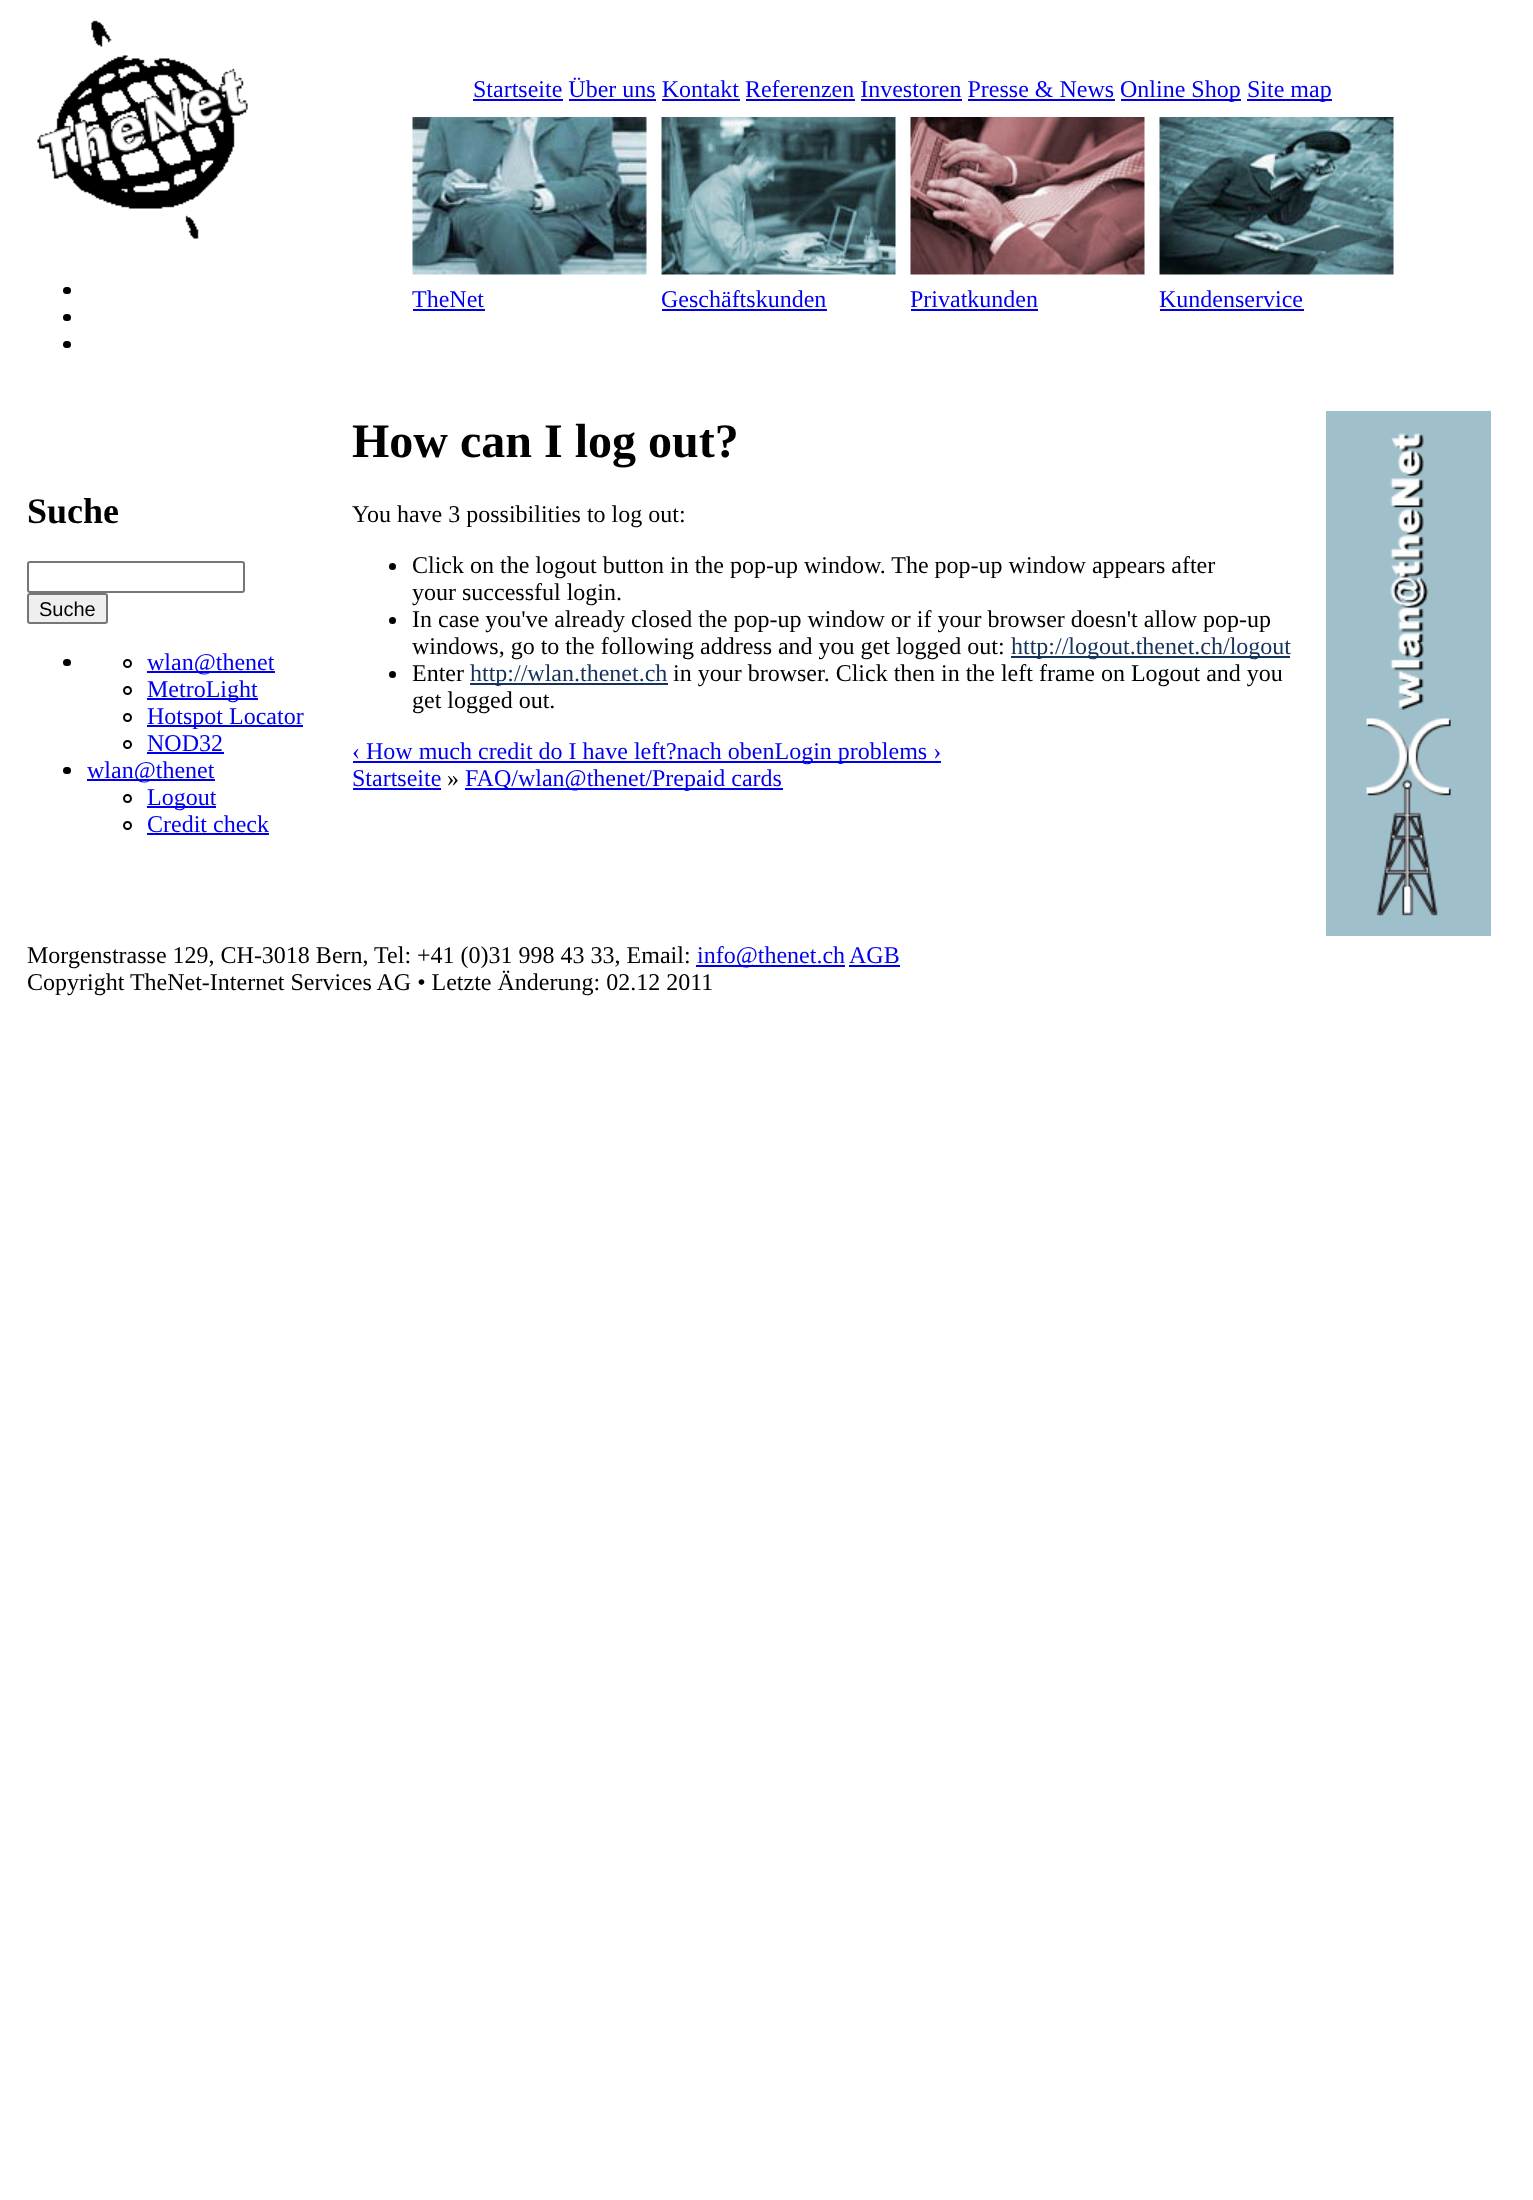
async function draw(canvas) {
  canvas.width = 1533;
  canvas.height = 2200;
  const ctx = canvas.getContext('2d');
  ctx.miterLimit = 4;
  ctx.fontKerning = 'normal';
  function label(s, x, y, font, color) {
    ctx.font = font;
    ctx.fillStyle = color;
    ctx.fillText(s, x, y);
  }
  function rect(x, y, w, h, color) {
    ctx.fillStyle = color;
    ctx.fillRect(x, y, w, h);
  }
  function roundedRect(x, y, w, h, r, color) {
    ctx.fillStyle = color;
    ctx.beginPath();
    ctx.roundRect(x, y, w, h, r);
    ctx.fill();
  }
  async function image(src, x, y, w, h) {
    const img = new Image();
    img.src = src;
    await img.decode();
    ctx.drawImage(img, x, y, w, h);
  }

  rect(0, 0, 1533, 2200, '#fff');
  await image('assets/img1.png', 37, 20, 211, 219);
  roundedRect(63, 287, 8, 7, 3.5, '#000');
  roundedRect(63, 314, 8, 7, 3.5, '#000');
  roundedRect(63, 341, 8, 7, 3.5, '#000');
  label('Startseite Über uns Kontakt Referenzen Investoren Presse & News', 473, 97, '24px Liberation Serif', '#00e');
  rect(473, 99, 90, 2, '#00e');
  rect(1121, 99, 120, 2, '#00e');
  label('Online Shop', 1120, 97, '24px Liberation Serif', '#00e');
  rect(1247, 99, 85, 2, '#00e');
  label('Site map', 1247, 97, '24px Liberation Serif', '#00e');
  rect(569, 99, 87, 2, '#00e');
  rect(662, 99, 78, 2, '#00e');
  rect(746, 99, 109, 2, '#00e');
  rect(861, 99, 101, 2, '#00e');
  rect(968, 99, 147, 2, '#00e');
  await image('assets/img2.png', 412, 117, 235, 158);
  label('TheNet', 412, 307, '24px Liberation Serif', '#00e');
  rect(413, 309, 72, 2, '#00e');
  await image('assets/img3.png', 661, 117, 235, 158);
  label('Geschäftskunden', 661, 307, '24px Liberation Serif', '#00e');
  rect(662, 309, 165, 2, '#00e');
  await image('assets/img4.png', 910, 117, 235, 158);
  label('Privatkunden', 910, 307, '24px Liberation Serif', '#00e');
  rect(911, 309, 127, 2, '#00e');
  await image('assets/img5.png', 1159, 117, 235, 158);
  label('Kundenservice', 1159, 307, '24px Liberation Serif', '#00e');
  rect(1160, 309, 144, 2, '#00e');
  label('Suche', 27, 523, 'bold 36px Liberation Serif', '#000');
  ctx.beginPath();
  ctx.roundRect(28, 562, 216, 30, 2);
  ctx.strokeStyle = '#767676';
  ctx.lineWidth = 2;
  ctx.stroke();
  ctx.fillStyle = '#efefef';
  ctx.beginPath();
  ctx.roundRect(28, 594, 79, 29, 2);
  ctx.fill();
  ctx.stroke();
  label('Suche', 39, 616, '20px Liberation Sans', '#000');
  roundedRect(63, 659, 8, 7, 3.5, '#000');
  ctx.beginPath();
  ctx.arc(127.5, 663.5, 3.5, 0, 2 * Math.PI);
  ctx.strokeStyle = '#000';
  ctx.stroke();
  rect(147, 671, 128, 2, '#00e');
  label('wlan@thenet', 147, 670, '24px Liberation Serif', '#00e');
  ctx.beginPath();
  ctx.arc(127.5, 690.5, 3.5, 0, 2 * Math.PI);
  ctx.stroke();
  rect(147, 698, 111, 2, '#00e');
  label('MetroLight', 147, 697, '24px Liberation Serif', '#00e');
  ctx.beginPath();
  ctx.arc(127.5, 717.5, 3.5, 0, 2 * Math.PI);
  ctx.stroke();
  rect(147, 725, 156, 2, '#00e');
  label('Hotspot Locator', 147, 724, '24px Liberation Serif', '#00e');
  ctx.beginPath();
  ctx.arc(127.5, 744.5, 3.5, 0, 2 * Math.PI);
  ctx.stroke();
  label('NOD32', 147, 751, '24px Liberation Serif', '#00e');
  rect(147, 752, 77, 2, '#00e');
  roundedRect(63, 767, 8, 7, 3.5, '#000');
  rect(87, 779, 128, 2, '#00e');
  label('wlan@thenet', 87, 778, '24px Liberation Serif', '#00e');
  ctx.beginPath();
  ctx.arc(127.5, 798.5, 3.5, 0, 2 * Math.PI);
  ctx.stroke();
  rect(147, 806, 69, 2, '#00e');
  label('Logout', 147, 805, '24px Liberation Serif', '#00e');
  ctx.beginPath();
  ctx.arc(127.5, 825.5, 3.5, 0, 2 * Math.PI);
  ctx.stroke();
  label('Credit check', 147, 832, '24px Liberation Serif', '#00e');
  rect(147, 833, 122, 2, '#00e');
  label('How can I log out?', 352, 457, 'bold 48px Liberation Serif', '#000');
  label('You have 3 possibilities to log out:', 352, 522, '24px Liberation Serif', '#000');
  ctx.beginPath();
  ctx.arc(392.5, 566.5, 3.5, 0, 2 * Math.PI);
  ctx.fill();
  label('Click on the logout button in the pop-up window. The pop-up window appears after', 412, 573, '24px Liberation Serif', '#000');
  label('your successful login.', 412, 600, '24px Liberation Serif', '#000');
  ctx.beginPath();
  ctx.arc(392.5, 620.5, 3.5, 0, 2 * Math.PI);
  ctx.fill();
  label('In case you\'ve already closed the pop-up window or if your browser doesn\'t allow pop-up', 412, 627, '24px Liberation Serif', '#000');
  label('windows, go to the following address and you get logged out:', 412, 654, '24px Liberation Serif', '#000');
  rect(1011, 656, 279, 2, '#14325c');
  label('http://logout.thenet.ch/logout', 1011, 654, '24px Liberation Serif', '#14325c');
  ctx.fillStyle = '#000';
  ctx.beginPath();
  ctx.arc(392.5, 674.5, 3.5, 0, 2 * Math.PI);
  ctx.fill();
  label('Enter', 412, 681, '24px Liberation Serif', '#000');
  rect(470, 683, 198, 2, '#14325c');
  label('http://wlan.thenet.ch', 470, 681, '24px Liberation Serif', '#14325c');
  label('in your browser. Click then in the left frame on Logout and you', 673, 681, '24px Liberation Serif', '#000');
  label('get logged out.', 412, 708, '24px Liberation Serif', '#000');
  rect(353, 761, 588, 2, '#00e');
  label('‹ How much credit do I have left?nach obenLogin problems ›', 352, 759, '24px Liberation Serif', '#00e');
  label('Startseite', 352, 786, '24px Liberation Serif', '#00e');
  rect(353, 788, 88, 2, '#00e');
  label('»', 447, 786, '24px Liberation Serif', '#000');
  rect(465, 788, 318, 2, '#00e');
  label('FAQ/wlan@thenet/Prepaid cards', 465, 786, '24px Liberation Serif', '#00e');
  await image('assets/img6.png', 1326, 411, 165, 525);
  label('Morgenstrasse 129, CH-3018 Bern, Tel: +41 (0)31 998 43 33, Email:', 27, 963, '24px Liberation Serif', '#000');
  rect(696, 965, 149, 2, '#00e');
  label('info@thenet.ch', 697, 963, '24px Liberation Serif', '#00e');
  label('AGB', 849, 963, '24px Liberation Serif', '#00e');
  rect(849, 965, 51, 2, '#00e');
  label('Copyright TheNet-Internet Services AG • Letzte Änderung: 02.12 2011', 27, 990, '24px Liberation Serif', '#000');
}

draw(document.querySelector('canvas'));
